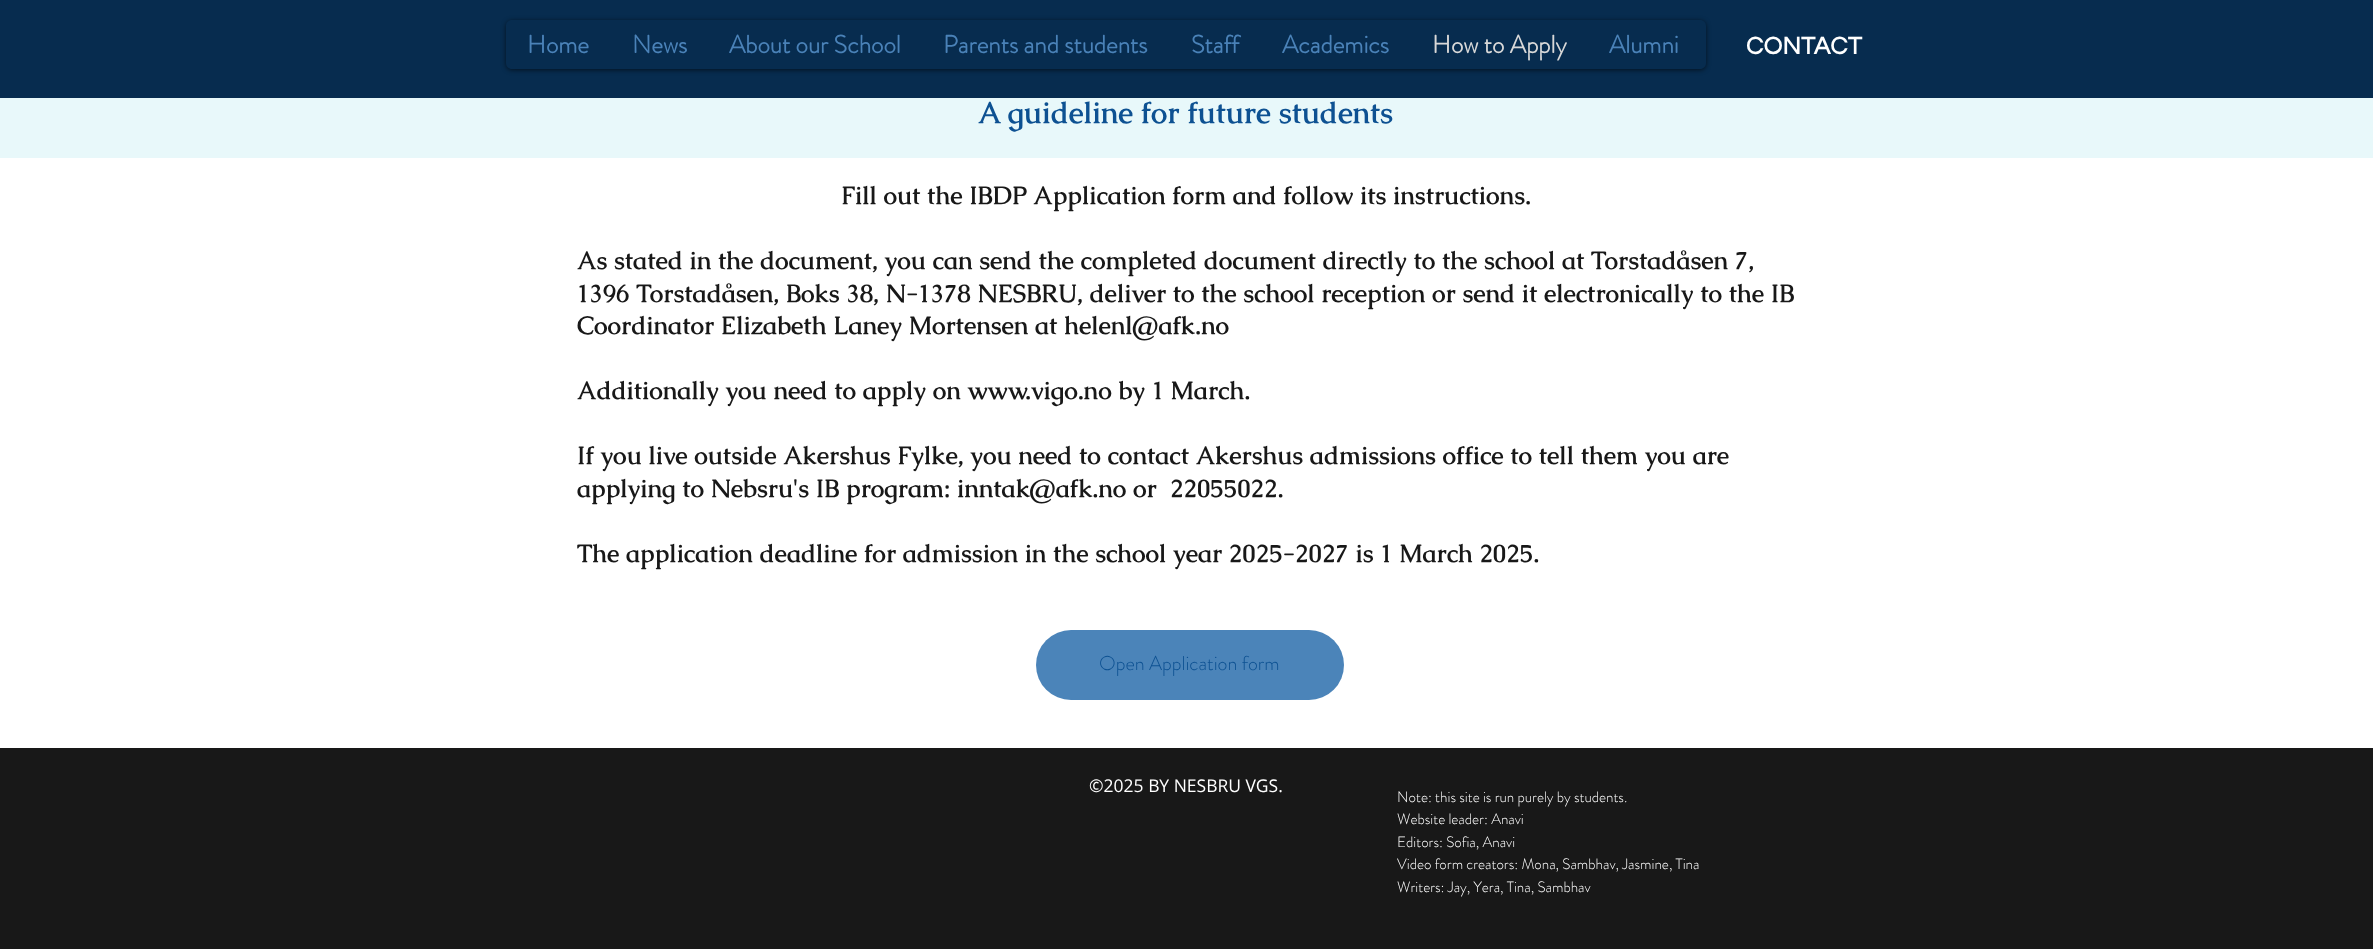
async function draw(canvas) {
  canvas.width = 2373;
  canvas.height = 949;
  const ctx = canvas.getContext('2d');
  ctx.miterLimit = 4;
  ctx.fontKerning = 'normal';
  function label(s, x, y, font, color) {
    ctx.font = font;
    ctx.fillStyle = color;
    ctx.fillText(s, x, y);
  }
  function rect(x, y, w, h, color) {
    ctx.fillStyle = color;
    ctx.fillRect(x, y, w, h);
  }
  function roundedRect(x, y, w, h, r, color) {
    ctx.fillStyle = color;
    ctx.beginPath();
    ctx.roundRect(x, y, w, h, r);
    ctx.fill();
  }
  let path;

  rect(0, 0, 2373, 949, '#fff');
  rect(0, 0, 2373, 98, '#072c4f');
  ctx.save();
  path = new Path2D('M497 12H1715V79H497ZM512 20H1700C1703.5 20 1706 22.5 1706 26V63C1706 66.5 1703.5 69 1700 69H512C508.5 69 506 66.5 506 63V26C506 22.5 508.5 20 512 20Z');
  ctx.clip(path, 'evenodd');
  ctx.fillStyle = '#00000099';
  ctx.filter = 'blur(2.5px)';
  ctx.beginPath();
  ctx.roundRect(506, 21, 1200, 49, 6);
  ctx.fill();
  ctx.filter = 'none';
  ctx.restore();
  label('Home', 527, 53, 'bold 25px "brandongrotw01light"', '#4a82b8');
  label('News', 632, 53, 'bold 25px "brandongrotw01light"', '#4a82b8');
  label('About our School', 729, 53, 'bold 25px "brandongrotw01light"', '#4a82b8');
  label('Parents and students', 943, 53, 'bold 25px "brandongrotw01light"', '#4a82b8');
  label('Staff', 1191, 53, 'bold 25px "brandongrotw01light"', '#4a82b8');
  label('Academics', 1282, 53, 'bold 25px "brandongrotw01light"', '#4a82b8');
  label('How to Apply', 1432, 53, 'bold 25px "brandongrotw01light"', '#d8d8d8');
  label('Alumni', 1609, 53, 'bold 25px "brandongrotw01light"', '#4a82b8');
  ctx.letterSpacing = '0.25px';
  label('CONTACT', 1746, 54, 'bold 25px Questrial', '#fff');
  rect(0, 98, 2373, 60, '#e8f8fa');
  ctx.letterSpacing = '0px';
  label('A guideline for future students', 978, 123, 'bold 30px Caudex', '#0d5192');
  label('Fill out the IBDP Application form and follow its instructions.', 841, 204, 'bold 25px Caudex', '#181818');
  label('As stated in the document, you can send the completed document directly to the school at Torstadåsen 7,', 577, 269, 'bold 25px Caudex', '#181818');
  label('1396 Torstadåsen, Boks 38, N-1378 NESBRU, deliver to the school reception or send it electronically to the IB', 577, 302, 'bold 25px Caudex', '#181818');
  label('Coordinator Elizabeth Laney Mortensen at helenl@afk.no', 577, 334, 'bold 25px Caudex', '#181818');
  label('Additionally you need to apply on www.vigo.no by 1 March.', 577, 399, 'bold 25px Caudex', '#181818');
  label('If you live outside Akershus Fylke, you need to contact Akershus admissions office to tell them you are', 577, 464, 'bold 25px Caudex', '#181818');
  label('applying to Nebsru\'s IB program: inntak@afk.no or  22055022.', 577, 497, 'bold 25px Caudex', '#181818');
  label('The application deadline for admission in the school year 2025-2027 is 1 March 2025.', 577, 562, 'bold 25px Caudex', '#181818');
  roundedRect(1036, 630, 308, 70, 35, '#4b84b9');
  label('Open Application form', 1099, 670, '300 20px "brandongrotw01light"', '#0d5192');
  rect(0, 748, 2373, 201, '#181818');
  label('©2025 BY NESBRU VGS.', 1089, 792, '17.5px Open Sans', '#fff');
  label('Note: this site is run purely by students.', 1397, 802, '300 15px "brandongrotw01light"', '#fff');
  label('Website leader: Anavi', 1397, 824, '300 15px "brandongrotw01light"', '#fff');
  label('Editors: Sofia, Anavi', 1397, 847, '300 15px "brandongrotw01light"', '#fff');
  label('Video form creators: Mona, Sambhav, Jasmine, Tina', 1397, 869, '300 15px "brandongrotw01light"', '#fff');
  label('Writers: Jay, Yera, Tina, Sambhav', 1397, 892, '300 15px "brandongrotw01light"', '#fff');
}

draw(document.querySelector('canvas'));
